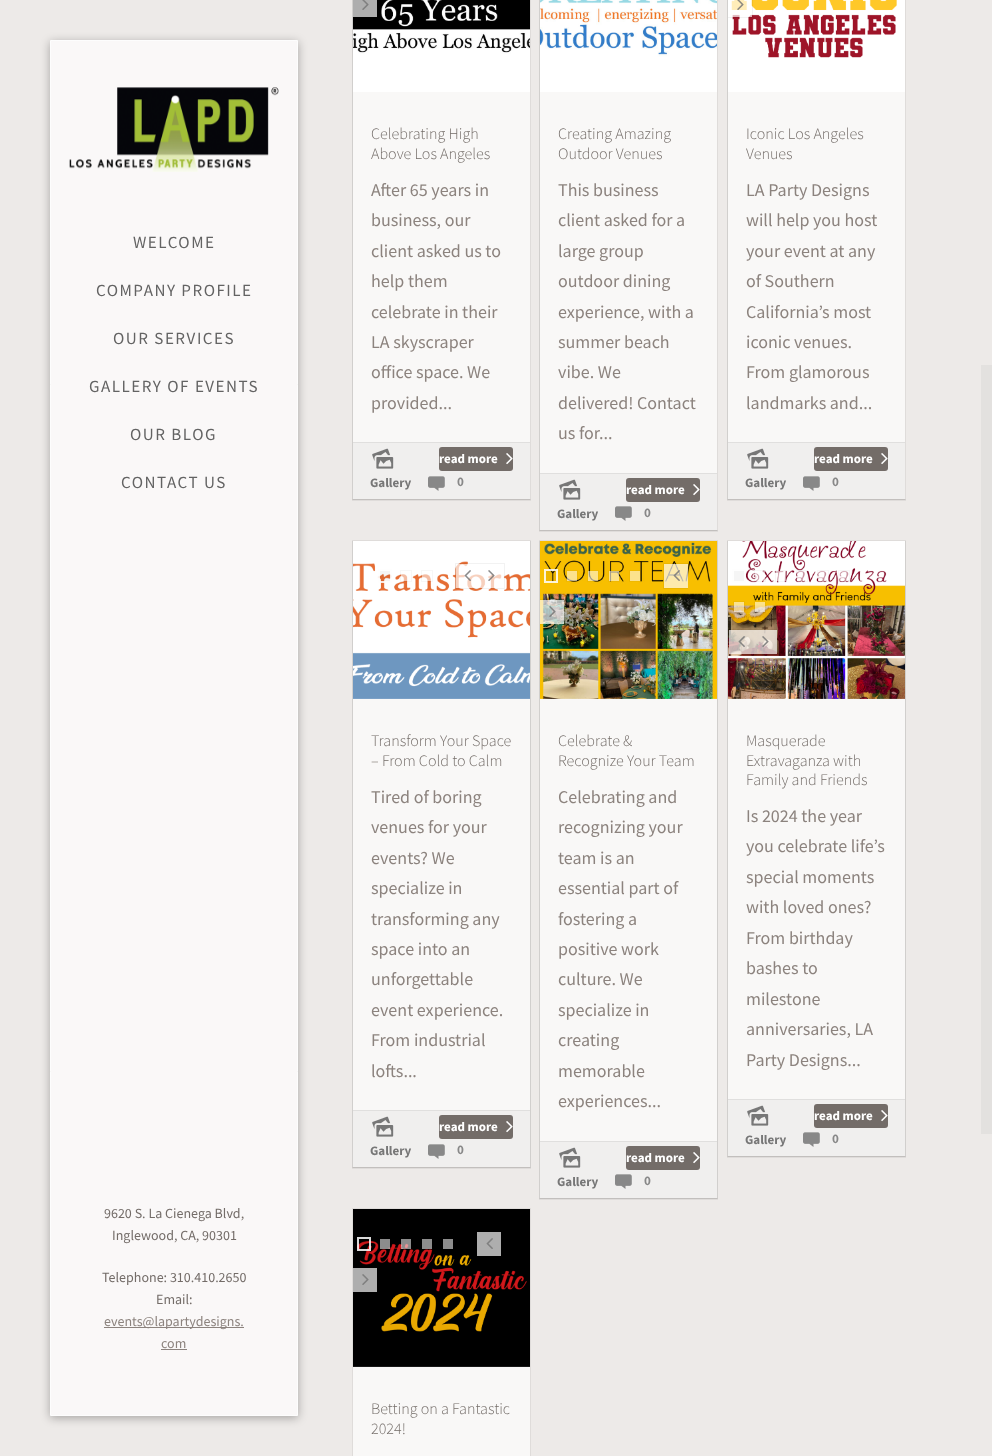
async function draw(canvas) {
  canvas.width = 992;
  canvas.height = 1456;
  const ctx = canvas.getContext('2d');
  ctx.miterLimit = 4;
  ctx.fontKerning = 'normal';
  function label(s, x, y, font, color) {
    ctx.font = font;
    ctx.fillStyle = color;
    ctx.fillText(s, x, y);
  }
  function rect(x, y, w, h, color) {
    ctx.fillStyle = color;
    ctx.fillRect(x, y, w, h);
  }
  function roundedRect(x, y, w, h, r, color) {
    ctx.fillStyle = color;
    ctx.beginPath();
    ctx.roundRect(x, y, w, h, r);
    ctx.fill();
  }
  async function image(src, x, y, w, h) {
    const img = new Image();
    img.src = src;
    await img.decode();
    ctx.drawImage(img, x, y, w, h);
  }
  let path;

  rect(0, 0, 992, 1456, '#edeae8');
  ctx.fillStyle = '#0000004d';
  ctx.filter = 'blur(5px)';
  ctx.beginPath();
  ctx.rect(50, 42, 248, 1376);
  ctx.fill();
  ctx.filter = 'none';
  ctx.fillStyle = '#faf8f8';
  ctx.beginPath();
  ctx.rect(50.5, 40.5, 247, 1375);
  ctx.fill();
  ctx.strokeStyle = '#fdfdfd';
  ctx.stroke();
  await image('assets/img1.png', 69, 87, 210, 85);
  ctx.letterSpacing = '1.5px';
  label('WELCOME', 133, 248, '17px Source Sans Pro', '#636363');
  label('COMPANY PROFILE', 96, 296, '17px Source Sans Pro', '#636363');
  label('OUR SERVICES', 113, 344, '17px Source Sans Pro', '#636363');
  label('GALLERY OF EVENTS', 89, 392, '17px Source Sans Pro', '#636363');
  label('OUR BLOG', 130, 440, '17px Source Sans Pro', '#636363');
  label('CONTACT US', 121, 488, '17px Source Sans Pro', '#636363');
  ctx.letterSpacing = '0px';
  label('9620 S. La Cienega Blvd,', 104, 1218, '14px Source Sans Pro', '#736c68');
  label('Inglewood, CA, 90301', 112, 1240, '14px Source Sans Pro', '#736c68');
  label('Telephone: 310.410.2650', 102, 1282, '14px Source Sans Pro', '#736c68');
  label('Email:', 156, 1304, '14px Source Sans Pro', '#736c68');
  rect(104, 1327, 140, 1, '#8c837e');
  label('events@lapartydesigns.', 104, 1326, '14px Source Sans Pro', '#8c837e');
  label('com', 161, 1348, '14px Source Sans Pro', '#8c837e');
  rect(161, 1349, 26, 1, '#8c837e');
  ctx.fillStyle = '#0000000f';
  ctx.filter = 'blur(0.5px)';
  ctx.beginPath();
  ctx.rect(352, -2, 179, 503);
  ctx.fill();
  ctx.filter = 'none';
  rect(353, 91, 177, 351, '#f9f8f7');
  ctx.fillStyle = '#00000021';
  path = new Path2D('M531 500H352L353 499H530Z');
  ctx.fill(path);
  ctx.fillStyle = '#0000000f';
  path = new Path2D('M352 500V-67L353-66V499Z');
  ctx.fill(path);
  await image('assets/img2.png', 353, 0, 177, 92);
  rect(353, 0, 24, 17, '#aeaeae');
  await image('assets/img3.png', 362, 0, 7, 10);
  label('Celebrating High', 371, 139, '300 16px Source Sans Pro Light', '#736c68');
  label('Above Los Angeles', 371, 159, '300 16px Source Sans Pro Light', '#736c68');
  label('After 65 years in', 371, 196, '18px Source Sans Pro', '#8c837e');
  label('business, our', 371, 226, '18px Source Sans Pro', '#8c837e');
  label('client asked us to', 371, 257, '18px Source Sans Pro', '#8c837e');
  label('help them', 371, 287, '18px Source Sans Pro', '#8c837e');
  label('celebrate in their', 371, 318, '18px Source Sans Pro', '#8c837e');
  label('LA skyscraper', 371, 348, '18px Source Sans Pro', '#8c837e');
  label('office space. We', 371, 378, '18px Source Sans Pro', '#8c837e');
  label('provided...', 371, 409, '18px Source Sans Pro', '#8c837e');
  rect(353, 443, 177, 56, '#f0efee');
  rect(353, 442, 177, 1, '#e0dfde');
  roundedRect(439, 447, 74, 24, 3, '#736c68');
  label('read more', 439, 463, 'bold 13px Source Sans Pro', '#fff');
  await image('assets/img4.png', 506, 453, 7, 12);
  await image('assets/img5.png', 372, 448, 22, 21);
  label('Gallery', 370, 487, 'bold 13px Source Sans Pro', '#777');
  await image('assets/img6.png', 428, 476, 17, 15);
  label('0', 457, 486, 'bold 13px Source Sans Pro', '#888');
  ctx.fillStyle = '#0000000f';
  ctx.filter = 'blur(0.5px)';
  ctx.beginPath();
  ctx.rect(539, -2, 179, 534);
  ctx.fill();
  ctx.filter = 'none';
  rect(540, 91, 177, 382, '#f9f8f7');
  ctx.fillStyle = '#00000021';
  path = new Path2D('M718 531H539L540 530H717Z');
  ctx.fill(path);
  ctx.fillStyle = '#0000000f';
  path = new Path2D('M539 531V-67L540-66V530Z');
  ctx.fill(path);
  await image('assets/img7.png', 540, 0, 177, 92);
  label('Creating Amazing', 558, 139, '300 16px Source Sans Pro Light', '#736c68');
  label('Outdoor Venues', 558, 159, '300 16px Source Sans Pro Light', '#736c68');
  label('This business', 558, 196, '18px Source Sans Pro', '#8c837e');
  label('client asked for a', 558, 226, '18px Source Sans Pro', '#8c837e');
  label('large group', 558, 257, '18px Source Sans Pro', '#8c837e');
  label('outdoor dining', 558, 287, '18px Source Sans Pro', '#8c837e');
  label('experience, with a', 558, 318, '18px Source Sans Pro', '#8c837e');
  label('summer beach', 558, 348, '18px Source Sans Pro', '#8c837e');
  label('vibe. We', 558, 378, '18px Source Sans Pro', '#8c837e');
  label('delivered! Contact', 558, 409, '18px Source Sans Pro', '#8c837e');
  label('us for...', 558, 439, '18px Source Sans Pro', '#8c837e');
  rect(540, 474, 177, 56, '#f0efee');
  rect(540, 473, 177, 1, '#e0dfde');
  roundedRect(626, 478, 74, 24, 3, '#736c68');
  label('read more', 626, 494, 'bold 13px Source Sans Pro', '#fff');
  await image('assets/img4.png', 693, 484, 7, 12);
  await image('assets/img5.png', 559, 479, 22, 21);
  label('Gallery', 557, 518, 'bold 13px Source Sans Pro', '#777');
  await image('assets/img6.png', 615, 506, 17, 15);
  label('0', 644, 517, 'bold 13px Source Sans Pro', '#888');
  ctx.fillStyle = '#0000000f';
  ctx.filter = 'blur(0.5px)';
  ctx.beginPath();
  ctx.rect(727, -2, 179, 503);
  ctx.fill();
  ctx.filter = 'none';
  rect(728, 91, 177, 351, '#f9f8f7');
  ctx.fillStyle = '#00000021';
  path = new Path2D('M906 500H727L728 499H905Z');
  ctx.fill(path);
  ctx.fillStyle = '#0000000f';
  path = new Path2D('M727 500V-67L728-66V499Z');
  ctx.fill(path);
  await image('assets/img8.png', 728, 0, 177, 92);
  rect(731, 0, 21, 17, '#ffffffad');
  ctx.fillStyle = '#0000000d';
  path = new Path2D('M753-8V18L752 17V-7Z');
  ctx.fill(path);
  path = new Path2D('M753 18H728V17H752Z');
  ctx.fill(path);
  await image('assets/img9.png', 737, 0, 7, 10);
  label('Iconic Los Angeles', 746, 139, '300 16px Source Sans Pro Light', '#736c68');
  label('Venues', 746, 159, '300 16px Source Sans Pro Light', '#736c68');
  label('LA Party Designs', 746, 196, '18px Source Sans Pro', '#8c837e');
  label('will help you host', 746, 226, '18px Source Sans Pro', '#8c837e');
  label('your event at any', 746, 257, '18px Source Sans Pro', '#8c837e');
  label('of Southern', 746, 287, '18px Source Sans Pro', '#8c837e');
  label('California’s most', 746, 318, '18px Source Sans Pro', '#8c837e');
  label('iconic venues.', 746, 348, '18px Source Sans Pro', '#8c837e');
  label('From glamorous', 746, 378, '18px Source Sans Pro', '#8c837e');
  label('landmarks and...', 746, 409, '18px Source Sans Pro', '#8c837e');
  rect(728, 443, 177, 56, '#f0efee');
  rect(728, 442, 177, 1, '#e0dfde');
  roundedRect(814, 447, 74, 24, 3, '#736c68');
  label('read more', 814, 463, 'bold 13px Source Sans Pro', '#fff');
  await image('assets/img4.png', 881, 453, 7, 12);
  await image('assets/img5.png', 747, 448, 22, 21);
  label('Gallery', 745, 487, 'bold 13px Source Sans Pro', '#777');
  await image('assets/img6.png', 803, 476, 17, 15);
  label('0', 832, 486, 'bold 13px Source Sans Pro', '#888');
  ctx.fillStyle = '#0000000f';
  ctx.filter = 'blur(0.5px)';
  ctx.beginPath();
  ctx.rect(352, 541, 179, 628);
  ctx.fill();
  ctx.filter = 'none';
  rect(353, 698, 177, 412, '#f9f8f7');
  ctx.fillStyle = '#dfdcda';
  path = new Path2D('M352 540H531L530 541H353Z');
  ctx.fill(path);
  ctx.fillStyle = '#0000000f';
  path = new Path2D('M531 540V1168L530 1167V541Z');
  ctx.fill(path);
  ctx.fillStyle = '#00000021';
  path = new Path2D('M531 1168H352L353 1167H530Z');
  ctx.fill(path);
  ctx.fillStyle = '#0000000f';
  path = new Path2D('M352 1168V540L353 541V1167Z');
  ctx.fill(path);
  await image('assets/img10.png', 353, 541, 177, 158);
  rect(378, 569, 14, 14, '#0000000a');
  ctx.strokeStyle = '#ffffffd9';
  ctx.lineWidth = 2;
  ctx.strokeRect(379, 570, 12, 12);
  rect(401, 574, 7, 7, '#ffffff8c');
  ctx.strokeStyle = '#00000008';
  ctx.lineWidth = 1;
  ctx.strokeRect(400.5, 570.5, 11, 11);
  rect(422, 574, 9, 7, '#ffffff8c');
  ctx.strokeRect(421.5, 570.5, 11, 11);
  rect(456, 564, 24, 24, '#ffffffad');
  ctx.fillStyle = '#0000000d';
  path = new Path2D('M455 563H480V564H456ZM480 589H455L456 588H480Z');
  ctx.fill(path);
  path = new Path2D('M455 589V563L456 564V588Z');
  ctx.fill(path);
  await image('assets/img11.png', 464, 570, 7, 11);
  rect(480, 573, 24, 15, '#ffffffad');
  ctx.fillStyle = '#f2f2f2';
  path = new Path2D('M480 563H505L504 564H480Z');
  ctx.fill(path);
  ctx.fillStyle = '#0000000d';
  path = new Path2D('M505 563V589L504 588V564Z');
  ctx.fill(path);
  path = new Path2D('M505 589H480V588H504Z');
  ctx.fill(path);
  await image('assets/img12.png', 488, 570, 7, 11);
  label('Transform Your Space', 371, 746, '300 16px Source Sans Pro Light', '#736c68');
  label('– From Cold to Calm', 371, 766, '300 16px Source Sans Pro Light', '#736c68');
  label('Tired of boring', 371, 803, '18px Source Sans Pro', '#8c837e');
  label('venues for your', 371, 833, '18px Source Sans Pro', '#8c837e');
  label('events? We', 371, 864, '18px Source Sans Pro', '#8c837e');
  label('specialize in', 371, 894, '18px Source Sans Pro', '#8c837e');
  label('transforming any', 371, 925, '18px Source Sans Pro', '#8c837e');
  label('space into an', 371, 955, '18px Source Sans Pro', '#8c837e');
  label('unforgettable', 371, 985, '18px Source Sans Pro', '#8c837e');
  label('event experience.', 371, 1016, '18px Source Sans Pro', '#8c837e');
  label('From industrial', 371, 1046, '18px Source Sans Pro', '#8c837e');
  label('lofts...', 371, 1077, '18px Source Sans Pro', '#8c837e');
  rect(353, 1111, 177, 56, '#f0efee');
  rect(353, 1110, 177, 1, '#e0dfde');
  roundedRect(439, 1115, 74, 24, 3, '#736c68');
  label('read more', 439, 1131, 'bold 13px Source Sans Pro', '#fff');
  await image('assets/img4.png', 506, 1121, 7, 12);
  await image('assets/img5.png', 372, 1116, 22, 21);
  label('Gallery', 370, 1155, 'bold 13px Source Sans Pro', '#777');
  await image('assets/img6.png', 428, 1144, 17, 15);
  label('0', 457, 1154, 'bold 13px Source Sans Pro', '#888');
  ctx.fillStyle = '#0000000f';
  ctx.filter = 'blur(0.5px)';
  ctx.beginPath();
  ctx.rect(539, 541, 179, 659);
  ctx.fill();
  ctx.filter = 'none';
  rect(540, 698, 177, 443, '#f9f8f7');
  ctx.fillStyle = '#dfdcda';
  path = new Path2D('M539 540H718L717 541H540Z');
  ctx.fill(path);
  ctx.fillStyle = '#0000000f';
  path = new Path2D('M718 540V1199L717 1198V541Z');
  ctx.fill(path);
  ctx.fillStyle = '#00000021';
  path = new Path2D('M718 1199H539L540 1198H717Z');
  ctx.fill(path);
  ctx.fillStyle = '#0000000f';
  path = new Path2D('M539 1199V540L540 541V1198Z');
  ctx.fill(path);
  await image('assets/img13.png', 540, 541, 177, 158);
  rect(544, 569, 14, 14, '#0000000a');
  ctx.strokeStyle = '#ffffffd9';
  ctx.lineWidth = 2;
  ctx.strokeRect(545, 570, 12, 12);
  rect(567, 571, 10, 10, '#ffffff8c');
  ctx.strokeStyle = '#00000008';
  ctx.lineWidth = 1;
  ctx.strokeRect(566.5, 570.5, 11, 11);
  rect(588, 571, 10, 10, '#ffffff8c');
  ctx.strokeRect(587.5, 570.5, 11, 11);
  rect(609, 571, 10, 10, '#ffffff8c');
  ctx.strokeRect(608.5, 570.5, 11, 11);
  rect(630, 571, 10, 10, '#ffffff8c');
  ctx.strokeRect(629.5, 570.5, 11, 11);
  rect(664, 564, 24, 24, '#ffffffad');
  ctx.fillStyle = '#0000000d';
  path = new Path2D('M663 563H688V564H664Z');
  ctx.fill(path);
  ctx.fillStyle = '#ebb500';
  path = new Path2D('M688 589H663L664 588H688Z');
  ctx.fill(path);
  ctx.fillStyle = '#0000000d';
  path = new Path2D('M663 589V563L664 564V588Z');
  ctx.fill(path);
  await image('assets/img14.png', 673, 570, 7, 11);
  rect(540, 600, 24, 24, '#ffffffad');
  ctx.fillStyle = '#0000000d';
  path = new Path2D('M540 599H565L564 600H540Z');
  ctx.fill(path);
  path = new Path2D('M565 599V625L564 624V600Z');
  ctx.fill(path);
  path = new Path2D('M565 625H540V624H564Z');
  ctx.fill(path);
  await image('assets/img15.png', 549, 606, 7, 11);
  label('Celebrate &', 558, 746, '300 16px Source Sans Pro Light', '#736c68');
  label('Recognize Your Team', 558, 766, '300 16px Source Sans Pro Light', '#736c68');
  label('Celebrating and', 558, 803, '18px Source Sans Pro', '#8c837e');
  label('recognizing your', 558, 833, '18px Source Sans Pro', '#8c837e');
  label('team is an', 558, 864, '18px Source Sans Pro', '#8c837e');
  label('essential part of', 558, 894, '18px Source Sans Pro', '#8c837e');
  label('fostering a', 558, 925, '18px Source Sans Pro', '#8c837e');
  label('positive work', 558, 955, '18px Source Sans Pro', '#8c837e');
  label('culture. We', 558, 985, '18px Source Sans Pro', '#8c837e');
  label('specialize in', 558, 1016, '18px Source Sans Pro', '#8c837e');
  label('creating', 558, 1046, '18px Source Sans Pro', '#8c837e');
  label('memorable', 558, 1077, '18px Source Sans Pro', '#8c837e');
  label('experiences...', 558, 1107, '18px Source Sans Pro', '#8c837e');
  rect(540, 1142, 177, 56, '#f0efee');
  rect(540, 1141, 177, 1, '#e0dfde');
  roundedRect(626, 1146, 74, 24, 3, '#736c68');
  label('read more', 626, 1162, 'bold 13px Source Sans Pro', '#fff');
  await image('assets/img4.png', 693, 1152, 7, 12);
  await image('assets/img5.png', 559, 1147, 22, 21);
  label('Gallery', 557, 1186, 'bold 13px Source Sans Pro', '#777');
  await image('assets/img6.png', 615, 1174, 17, 15);
  label('0', 644, 1185, 'bold 13px Source Sans Pro', '#888');
  ctx.fillStyle = '#0000000f';
  ctx.filter = 'blur(0.5px)';
  ctx.beginPath();
  ctx.rect(727, 541, 179, 617);
  ctx.fill();
  ctx.filter = 'none';
  rect(728, 698, 177, 401, '#f9f8f7');
  ctx.fillStyle = '#dfdcda';
  path = new Path2D('M727 540H906L905 541H728Z');
  ctx.fill(path);
  ctx.fillStyle = '#0000000f';
  path = new Path2D('M906 540V1157L905 1156V541Z');
  ctx.fill(path);
  ctx.fillStyle = '#00000021';
  path = new Path2D('M906 1157H727L728 1156H905Z');
  ctx.fill(path);
  ctx.fillStyle = '#0000000f';
  path = new Path2D('M727 1157V540L728 541V1156Z');
  ctx.fill(path);
  await image('assets/img16.png', 728, 541, 177, 158);
  rect(732, 569, 14, 14, '#0000000a');
  ctx.strokeStyle = '#ffffffd9';
  ctx.lineWidth = 2;
  ctx.strokeRect(733, 570, 12, 12);
  rect(755, 571, 10, 10, '#ffffff8c');
  ctx.strokeStyle = '#00000008';
  ctx.lineWidth = 1;
  ctx.strokeRect(754.5, 570.5, 11, 11);
  rect(776, 571, 10, 10, '#ffffff8c');
  ctx.strokeRect(775.5, 570.5, 11, 11);
  rect(797, 571, 10, 10, '#ffffff8c');
  ctx.strokeRect(796.5, 570.5, 11, 11);
  rect(818, 571, 9, 10, '#ffffff8c');
  ctx.strokeRect(817.5, 570.5, 11, 11);
  rect(839, 571, 10, 10, '#ffffff8c');
  ctx.strokeRect(838.5, 570.5, 11, 11);
  rect(734, 602, 10, 10, '#ffffff8c');
  ctx.strokeRect(733.5, 601.5, 11, 11);
  rect(755, 602, 10, 10, '#ffffff8c');
  ctx.strokeRect(754.5, 601.5, 11, 11);
  rect(729, 630, 24, 24, '#ffffffad');
  ctx.fillStyle = '#0000000d';
  path = new Path2D('M728 629H753V630H729ZM753 655H728L729 654H753Z');
  ctx.fill(path);
  path = new Path2D('M728 655V629L729 630V654Z');
  ctx.fill(path);
  await image('assets/img17.png', 738, 636, 7, 11);
  rect(753, 630, 24, 24, '#ffffffad');
  ctx.fillStyle = '#0000000d';
  path = new Path2D('M753 629H778L777 630H753Z');
  ctx.fill(path);
  path = new Path2D('M778 629V655L777 654V630Z');
  ctx.fill(path);
  path = new Path2D('M778 655H753V654H777Z');
  ctx.fill(path);
  await image('assets/img18.png', 762, 636, 7, 11);
  label('Masquerade', 746, 746, '300 16px Source Sans Pro Light', '#736c68');
  label('Extravaganza with', 746, 766, '300 16px Source Sans Pro Light', '#736c68');
  label('Family and Friends', 746, 785, '300 16px Source Sans Pro Light', '#736c68');
  label('Is 2024 the year', 746, 822, '18px Source Sans Pro', '#8c837e');
  label('you celebrate life’s', 746, 852, '18px Source Sans Pro', '#8c837e');
  label('special moments', 746, 883, '18px Source Sans Pro', '#8c837e');
  label('with loved ones?', 746, 913, '18px Source Sans Pro', '#8c837e');
  label('From birthday', 746, 944, '18px Source Sans Pro', '#8c837e');
  label('bashes to', 746, 974, '18px Source Sans Pro', '#8c837e');
  label('milestone', 746, 1005, '18px Source Sans Pro', '#8c837e');
  label('anniversaries, LA', 746, 1035, '18px Source Sans Pro', '#8c837e');
  label('Party Designs...', 746, 1066, '18px Source Sans Pro', '#8c837e');
  rect(728, 1100, 177, 56, '#f0efee');
  rect(728, 1099, 177, 1, '#e0dfde');
  roundedRect(814, 1104, 74, 24, 3, '#736c68');
  label('read more', 814, 1120, 'bold 13px Source Sans Pro', '#fff');
  await image('assets/img4.png', 881, 1110, 7, 12);
  await image('assets/img5.png', 747, 1105, 22, 21);
  label('Gallery', 745, 1144, 'bold 13px Source Sans Pro', '#777');
  await image('assets/img6.png', 803, 1132, 17, 15);
  label('0', 832, 1143, 'bold 13px Source Sans Pro', '#888');
  rect(353, 1366, 177, 90, '#f9f8f7');
  ctx.fillStyle = '#dfdcda';
  path = new Path2D('M352 1208H531L530 1209H353Z');
  ctx.fill(path);
  ctx.fillStyle = '#0000000f';
  path = new Path2D('M531 1208V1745L530 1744V1209Z');
  ctx.fill(path);
  path = new Path2D('M352 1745V1208L353 1209V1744Z');
  ctx.fill(path);
  await image('assets/img19.png', 353, 1209, 177, 158);
  rect(357, 1241, 14, 10, '#0000000a');
  ctx.strokeStyle = '#ffffffd9';
  ctx.lineWidth = 2;
  ctx.strokeRect(358, 1238, 12, 12);
  rect(380, 1239, 10, 10, '#ffffff8c');
  ctx.strokeStyle = '#00000008';
  ctx.lineWidth = 1;
  ctx.strokeRect(379.5, 1238.5, 11, 11);
  rect(401, 1239, 10, 10, '#ffffff8c');
  ctx.strokeRect(400.5, 1238.5, 11, 11);
  rect(422, 1239, 10, 10, '#8d8d8d');
  ctx.strokeRect(421.5, 1238.5, 11, 11);
  rect(443, 1239, 10, 10, '#8d8d8d');
  rect(477, 1232, 24, 24, '#aeaeae');
  await image('assets/img20.png', 486, 1238, 7, 11);
  rect(353, 1268, 24, 24, '#aeaeae');
  await image('assets/img21.png', 362, 1274, 7, 11);
  label('Betting on a Fantastic', 371, 1414, '300 16px Source Sans Pro Light', '#736c68');
  label('2024!', 371, 1434, '300 16px Source Sans Pro Light', '#736c68');
  rect(981, 365, 11, 769, '#e3e1df');
}

draw(document.querySelector('canvas'));
